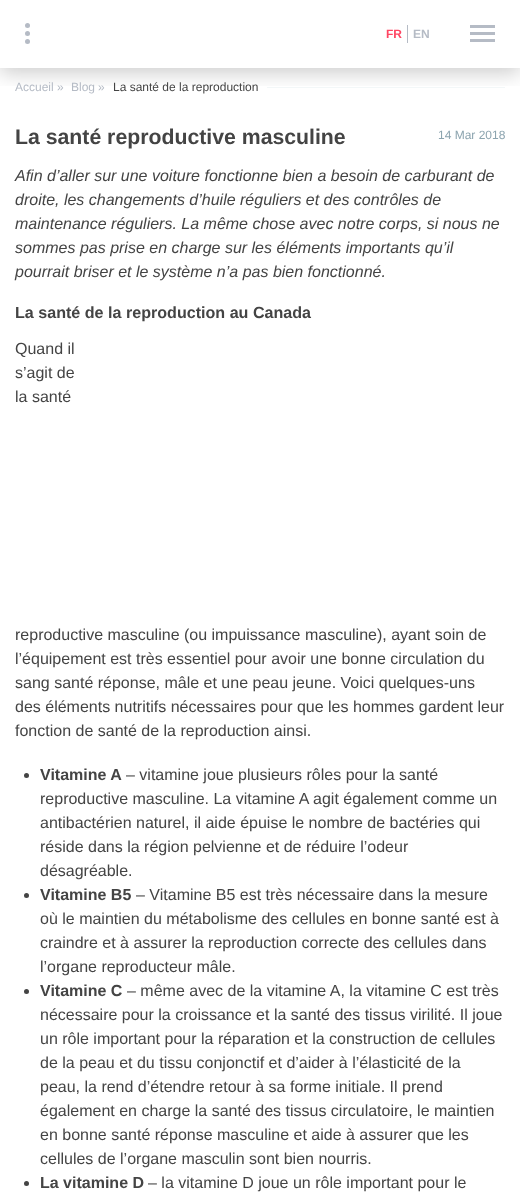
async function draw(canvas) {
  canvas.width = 520;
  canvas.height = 1201;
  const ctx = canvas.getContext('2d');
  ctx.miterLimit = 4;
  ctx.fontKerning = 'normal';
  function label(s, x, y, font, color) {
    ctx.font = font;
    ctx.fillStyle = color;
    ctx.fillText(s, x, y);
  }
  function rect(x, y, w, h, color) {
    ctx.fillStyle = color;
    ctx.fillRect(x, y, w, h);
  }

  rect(0, 0, 520, 1201, '#fff');
  rect(267, 87, 238, 1, '#f3f7f8');
  ctx.save();
  ctx.beginPath();
  ctx.rect(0, 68, 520, 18);
  ctx.clip();
  ctx.fillStyle = '#00000033';
  ctx.filter = 'blur(10px)';
  ctx.beginPath();
  ctx.rect(0, 5, 520, 68);
  ctx.fill();
  ctx.filter = 'none';
  ctx.restore();
  ctx.fillStyle = '#b5bbc5';
  ctx.beginPath();
  ctx.arc(27.5, 33.5, 2.5, 0, 2 * Math.PI);
  ctx.fill();
  ctx.beginPath();
  ctx.arc(27.5, 25.5, 2.5, 0, 2 * Math.PI);
  ctx.fill();
  ctx.beginPath();
  ctx.arc(27.5, 41.5, 2.5, 0, 2 * Math.PI);
  ctx.fill();
  label('FR', 386, 38, 'bold 12px Liberation Sans', '#ff4663');
  rect(407, 25, 1, 18, '#b5bbc5');
  label('EN', 413, 38, 'bold 12px Liberation Sans', '#b5bbc5');
  rect(470, 32, 25, 3, '#b5bbc5');
  rect(470, 25, 25, 3, '#b5bbc5');
  rect(470, 39, 25, 3, '#b5bbc5');
  label('Accueil', 15, 91, '12px Liberation Sans', '#b5bbc5');
  label('»', 57, 91, '12px Liberation Sans', '#b5bbc5');
  label('Blog', 71, 91, '12px Liberation Sans', '#b5bbc5');
  label('»', 98, 91, '12px Liberation Sans', '#b5bbc5');
  label('La santé de la reproduction', 113, 91, '12px Liberation Sans', '#444');
  label('La santé reproductive masculine', 15, 144, 'bold 21.25px Liberation Sans', '#444');
  label('14 Mar 2018', 438, 139, '12px Liberation Sans', '#8ca4af');
  label('Afin d’aller sur une voiture fonctionne bien a besoin de carburant de', 15, 181, 'italic 16px Liberation Sans', '#444');
  label('droite, les changements d’huile réguliers et des contrôles de', 15, 205, 'italic 16px Liberation Sans', '#444');
  label('maintenance réguliers. La même chose avec notre corps, si nous ne', 15, 229, 'italic 16px Liberation Sans', '#444');
  label('sommes pas prise en charge sur les éléments importants qu’il', 15, 253, 'italic 16px Liberation Sans', '#444');
  label('pourrait briser et le système n’a pas bien fonctionné.', 15, 277, 'italic 16px Liberation Sans', '#444');
  label('La santé de la reproduction au Canada', 15, 318, 'bold 16.1px Liberation Sans', '#444');
  label('Quand il', 15, 354, '16px Liberation Sans', '#444');
  label('s’agit de', 15, 378, '16px Liberation Sans', '#444');
  label('la santé', 15, 402, '16px Liberation Sans', '#444');
  label('reproductive masculine (ou impuissance masculine), ayant soin de', 15, 640, '16px Liberation Sans', '#444');
  label('l’équipement est très essentiel pour avoir une bonne circulation du', 15, 664, '16px Liberation Sans', '#444');
  label('sang santé réponse, mâle et une peau jeune. Voici quelques-uns', 15, 688, '16px Liberation Sans', '#444');
  label('des éléments nutritifs nécessaires pour que les hommes gardent leur', 15, 712, '16px Liberation Sans', '#444');
  label('fonction de santé de la reproduction ainsi.', 15, 736, '16px Liberation Sans', '#444');
  ctx.beginPath();
  ctx.arc(26.5, 775.5, 2.5, 0, 2 * Math.PI);
  ctx.fill();
  label('Vitamine A', 40, 780, 'bold 16px Liberation Sans', '#444');
  label('– vitamine joue plusieurs rôles pour la santé', 126, 780, '16px Liberation Sans', '#444');
  label('reproductive masculine. La vitamine A agit également comme un', 40, 804, '16px Liberation Sans', '#444');
  label('antibactérien naturel, il aide épuise le nombre de bactéries qui', 40, 828, '16px Liberation Sans', '#444');
  label('réside dans la région pelvienne et de réduire l’odeur', 40, 852, '16px Liberation Sans', '#444');
  label('désagréable.', 40, 876, '16px Liberation Sans', '#444');
  ctx.beginPath();
  ctx.arc(26.5, 895.5, 2.5, 0, 2 * Math.PI);
  ctx.fill();
  label('Vitamine B5', 40, 900, 'bold 16px Liberation Sans', '#444');
  label('– Vitamine B5 est très nécessaire dans la mesure', 136, 900, '16px Liberation Sans', '#444');
  label('où le maintien du métabolisme des cellules en bonne santé est à', 40, 924, '16px Liberation Sans', '#444');
  label('craindre et à assurer la reproduction correcte des cellules dans', 40, 948, '16px Liberation Sans', '#444');
  label('l’organe reproducteur mâle.', 40, 972, '16px Liberation Sans', '#444');
  ctx.beginPath();
  ctx.arc(26.5, 991.5, 2.5, 0, 2 * Math.PI);
  ctx.fill();
  label('Vitamine C', 40, 996, 'bold 16px Liberation Sans', '#444');
  label('– même avec de la vitamine A, la vitamine C est très', 127, 996, '16px Liberation Sans', '#444');
  label('nécessaire pour la croissance et la santé des tissus virilité. Il joue', 40, 1020, '16px Liberation Sans', '#444');
  label('un rôle important pour la réparation et la construction de cellules', 40, 1044, '16px Liberation Sans', '#444');
  label('de la peau et du tissu conjonctif et d’aider à l’élasticité de la', 40, 1068, '16px Liberation Sans', '#444');
  label('peau, la rend d’étendre retour à sa forme initiale. Il prend', 40, 1092, '16px Liberation Sans', '#444');
  label('également en charge la santé des tissus circulatoire, le maintien', 40, 1116, '16px Liberation Sans', '#444');
  label('en bonne santé réponse masculine et aide à assurer que les', 40, 1140, '16px Liberation Sans', '#444');
  label('cellules de l’organe masculin sont bien nourris.', 40, 1164, '16px Liberation Sans', '#444');
  ctx.beginPath();
  ctx.arc(26.5, 1183.5, 2.5, 0, 2 * Math.PI);
  ctx.fill();
  label('La vitamine D', 40, 1188, 'bold 16px Liberation Sans', '#444');
  label('– la vitamine D joue un rôle important pour le', 148, 1188, '16px Liberation Sans', '#444');
}

draw(document.querySelector('canvas'));
